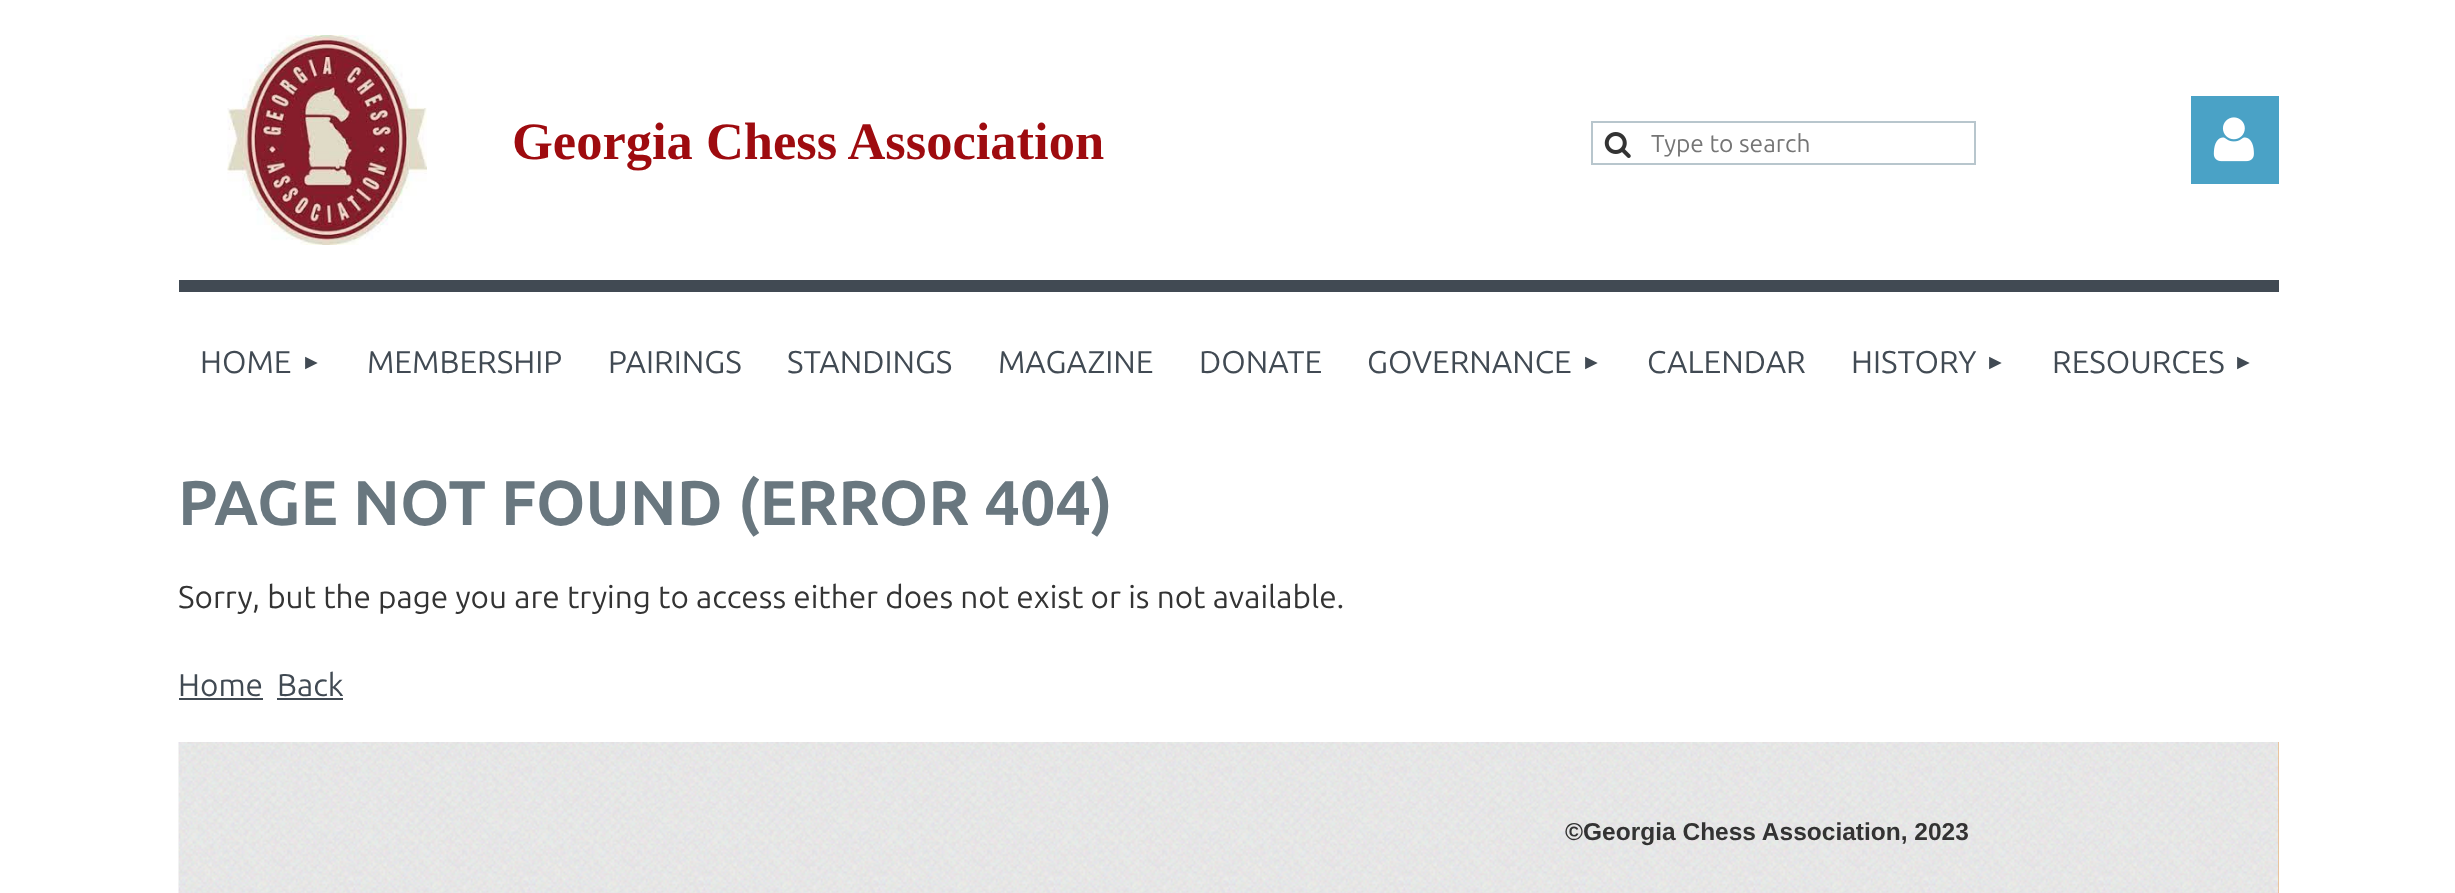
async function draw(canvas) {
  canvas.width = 2455;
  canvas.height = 893;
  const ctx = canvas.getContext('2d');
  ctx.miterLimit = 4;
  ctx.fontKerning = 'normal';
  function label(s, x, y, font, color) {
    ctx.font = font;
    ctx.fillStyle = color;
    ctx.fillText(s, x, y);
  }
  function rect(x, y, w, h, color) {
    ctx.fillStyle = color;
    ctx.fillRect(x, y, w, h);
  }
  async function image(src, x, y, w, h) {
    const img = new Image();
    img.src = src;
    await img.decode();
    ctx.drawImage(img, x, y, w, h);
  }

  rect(0, 0, 2455, 893, '#fff');
  await image('assets/img1.png', 227, 35, 200, 210);
  label('Georgia Chess Association', 512, 159, 'bold 52.5px Liberation Serif', '#9e0b0f');
  ctx.strokeStyle = '#b8c6cd';
  ctx.lineWidth = 2;
  ctx.strokeRect(1592, 122, 383, 42);
  await image('assets/img2.png', 1604, 132, 27, 26);
  label('Type to search', 1651, 152, '24.5px Ubuntu', '#757575');
  rect(2191, 96, 88, 88, '#4aa2c6');
  await image('assets/img3.png', 2213, 117, 41, 45);
  rect(179, 280, 2100, 12, '#414a53');
  label('HOME', 200, 373, '31.5px Ubuntu', '#414a53');
  label('►', 301, 369, '21px Liberation Sans', '#414a53');
  label('MEMBERSHIP', 367, 373, '31.5px Ubuntu', '#414a53');
  label('PAIRINGS', 608, 373, '31.5px Ubuntu', '#414a53');
  label('STANDINGS', 787, 373, '31.5px Ubuntu', '#414a53');
  label('MAGAZINE', 998, 373, '31.5px Ubuntu', '#414a53');
  label('DONATE', 1199, 373, '31.5px Ubuntu', '#414a53');
  label('GOVERNANCE', 1367, 373, '31.5px Ubuntu', '#414a53');
  label('►', 1581, 369, '21px Liberation Sans', '#414a53');
  label('CALENDAR', 1647, 373, '31.5px Ubuntu', '#414a53');
  label('HISTORY', 1851, 373, '31.5px Ubuntu', '#414a53');
  label('►', 1985, 369, '21px Liberation Sans', '#414a53');
  label('RESOURCES', 2052, 373, '31.5px Ubuntu', '#414a53');
  label('►', 2233, 369, '21px Liberation Sans', '#414a53');
  label('PAGE NOT FOUND (ERROR 404)', 178, 525, 'bold 63px Ubuntu', '#69777f');
  label('Sorry, but the page you are trying to access either does not exist or is not available.', 178, 608, '31.5px Ubuntu', '#333');
  label('Home', 178, 696, '31.5px Ubuntu', '#414a53');
  rect(179, 698, 84, 2, '#414a53');
  label('Back', 277, 696, '31.5px Ubuntu', '#414a53');
  rect(277, 698, 66, 2, '#414a53');
  rect(2278, 742, 1, 151, '#eca356');
  await image('assets/img4.png', 178, 742, 2101, 151);
  label('©Georgia Chess Association, 2023', 1565, 840, 'bold 24.5px Liberation Sans', '#333');
}

draw(document.querySelector('canvas'));
